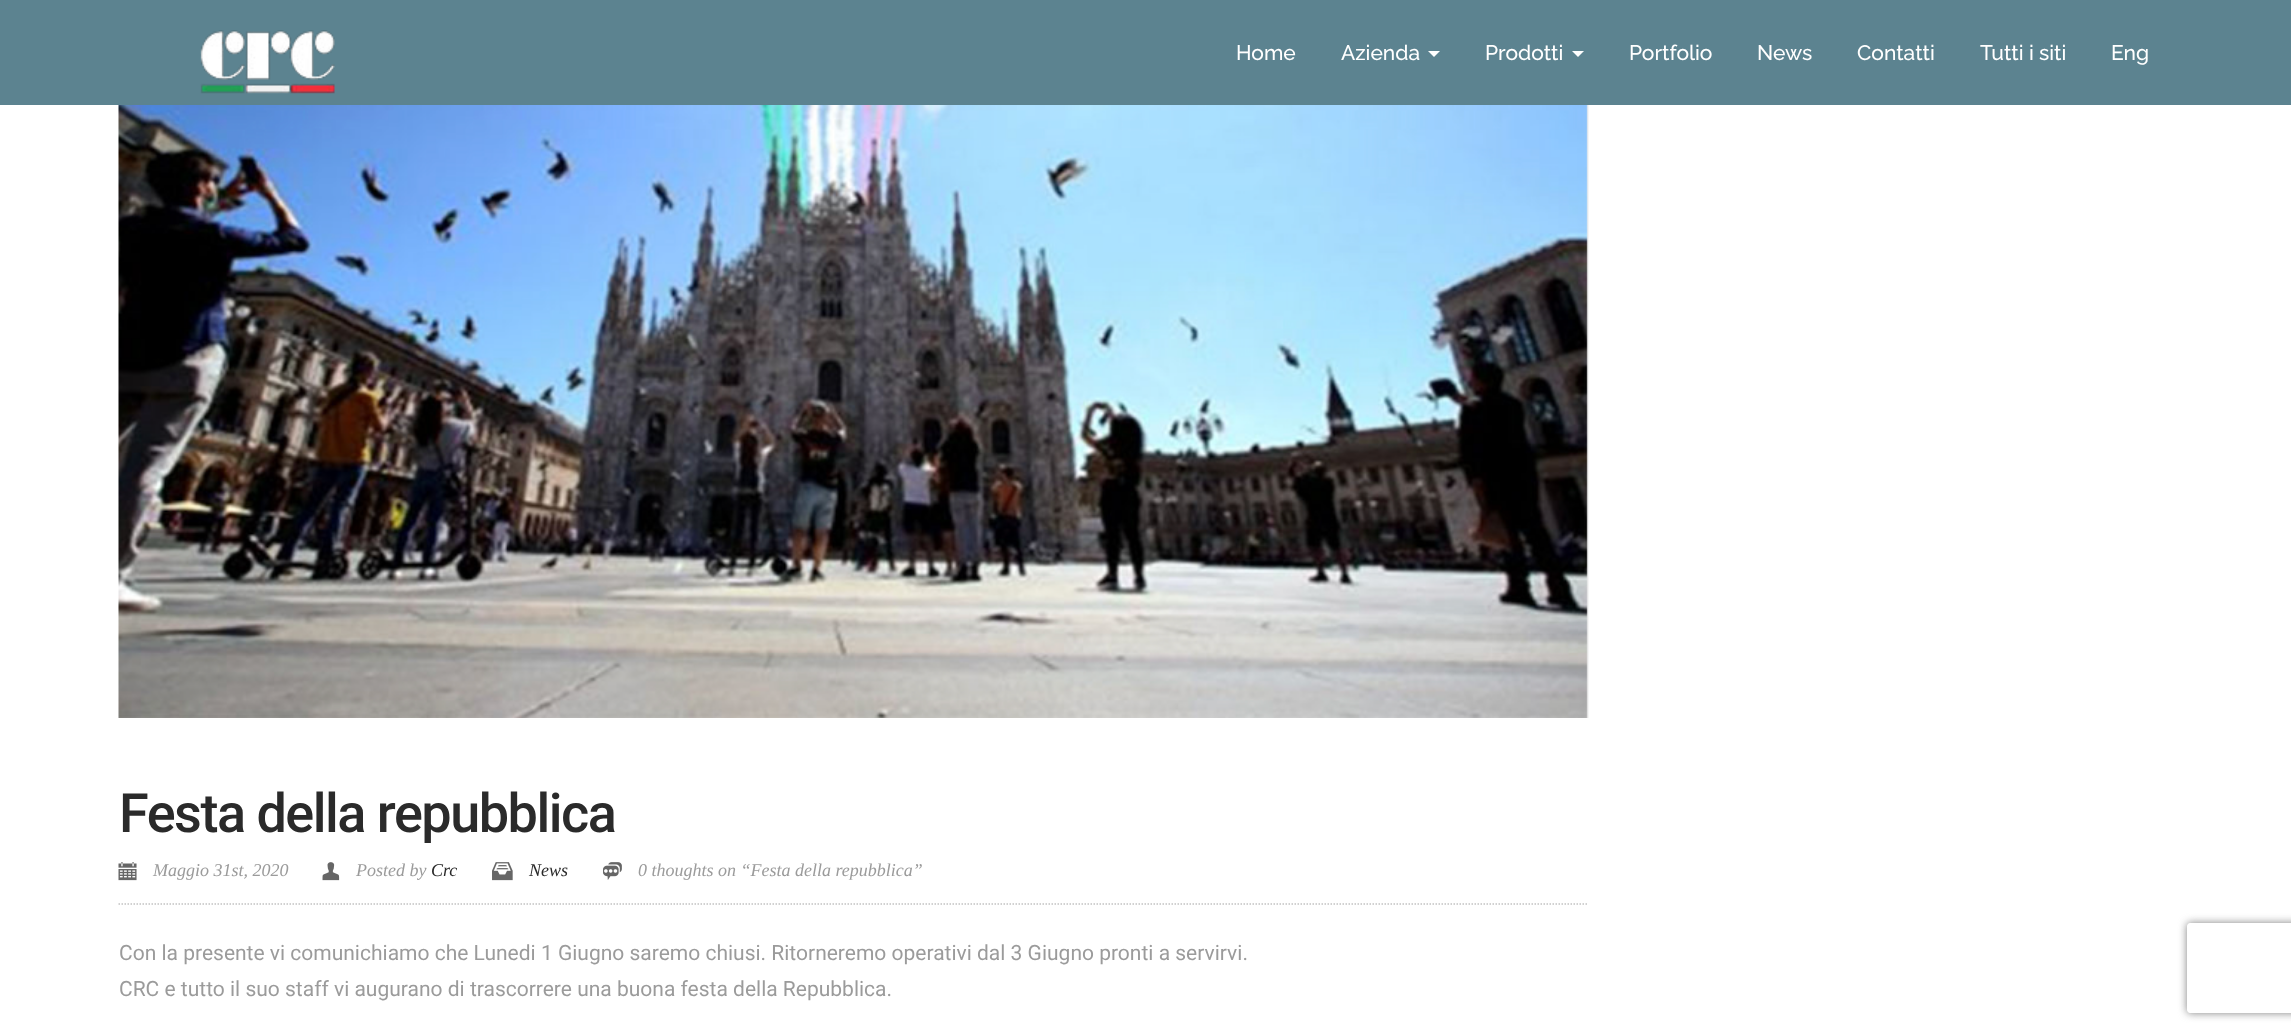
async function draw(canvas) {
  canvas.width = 2291;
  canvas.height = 1033;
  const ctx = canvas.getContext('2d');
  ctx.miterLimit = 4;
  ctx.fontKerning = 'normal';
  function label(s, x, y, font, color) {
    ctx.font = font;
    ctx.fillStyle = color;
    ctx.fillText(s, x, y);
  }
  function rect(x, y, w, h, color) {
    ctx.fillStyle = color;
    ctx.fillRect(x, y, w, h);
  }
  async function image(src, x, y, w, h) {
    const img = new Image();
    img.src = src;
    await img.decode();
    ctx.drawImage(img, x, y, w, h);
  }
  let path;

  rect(0, 0, 2291, 1033, '#fff');
  rect(0, 0, 2291, 105, '#5c8390');
  await image('assets/img1.png', 200, 30, 135, 64);
  label('Home', 1236, 60, '500 21px Raleway', '#fff');
  label('Azienda', 1341, 60, '500 21px Raleway', '#fff');
  path = new Path2D('M1428 51H1440L1434 57Z');
  ctx.fill(path);
  label('Prodotti', 1485, 60, '500 21px Raleway', '#fff');
  path = new Path2D('M1572 51H1584L1578 57Z');
  ctx.fill(path);
  label('Portfolio', 1629, 60, '500 21px Raleway', '#fff');
  label('News', 1757, 60, '500 21px Raleway', '#fff');
  label('Contatti', 1857, 60, '500 21px Raleway', '#fff');
  label('Tutti i siti', 1980, 60, '500 21px Raleway', '#fff');
  label('Eng', 2111, 60, '500 21px Raleway', '#fff');
  await image('assets/img2.png', 118, 105, 1471, 613);
  ctx.letterSpacing = '-1.5px';
  label('Festa della repubblica', 119, 832, '500 54px Roboto', '#2a2a2a');
  await image('assets/img3.png', 118, 862, 19, 19);
  ctx.letterSpacing = '0px';
  label('Maggio 31st, 2020', 153, 876, 'italic 18px Liberation Serif', '#9b9b9b');
  await image('assets/img4.png', 322, 862, 18, 19);
  label('Posted by', 356, 876, 'italic 18px Liberation Serif', '#9b9b9b');
  label('Crc', 431, 876, 'italic 18px Liberation Serif', '#2a2a2a');
  await image('assets/img5.png', 492, 862, 21, 19);
  label('News', 529, 876, 'italic 18px Liberation Serif', '#2a2a2a');
  await image('assets/img6.png', 603, 862, 19, 18);
  label('0 thoughts on “Festa della repubblica”', 638, 876, 'italic 18px Liberation Serif', '#9b9b9b');
  path = new Path2D('M118.5 904H1588.5');
  ctx.strokeStyle = '#c2c2c2';
  ctx.lineWidth = 1.5;
  ctx.setLineDash([1.5, 1.5]);
  ctx.stroke(path);
  label('Con la presente vi comunichiamo che Lunedi 1 Giugno saremo chiusi. Ritorneremo operativi dal 3 Giugno pronti a servirvi.', 119, 960, '21px Roboto', '#9b9b9b');
  label('CRC e tutto il suo staff vi augurano di trascorrere una buona festa della Repubblica.', 119, 996, '21px Roboto', '#9b9b9b');
  ctx.save();
  path = new Path2D('M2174 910H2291V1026H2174ZM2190 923H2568C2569.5 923 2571 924.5 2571 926V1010C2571 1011.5 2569.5 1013 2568 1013H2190C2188.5 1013 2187 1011.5 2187 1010V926C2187 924.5 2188.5 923 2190 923Z');
  ctx.clip(path, 'evenodd');
  ctx.fillStyle = '#808080';
  ctx.filter = 'blur(4px)';
  ctx.beginPath();
  ctx.roundRect(2187, 923, 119, 90, 3);
  ctx.fill();
  ctx.filter = 'none';
  ctx.restore();
}

draw(document.querySelector('canvas'));
